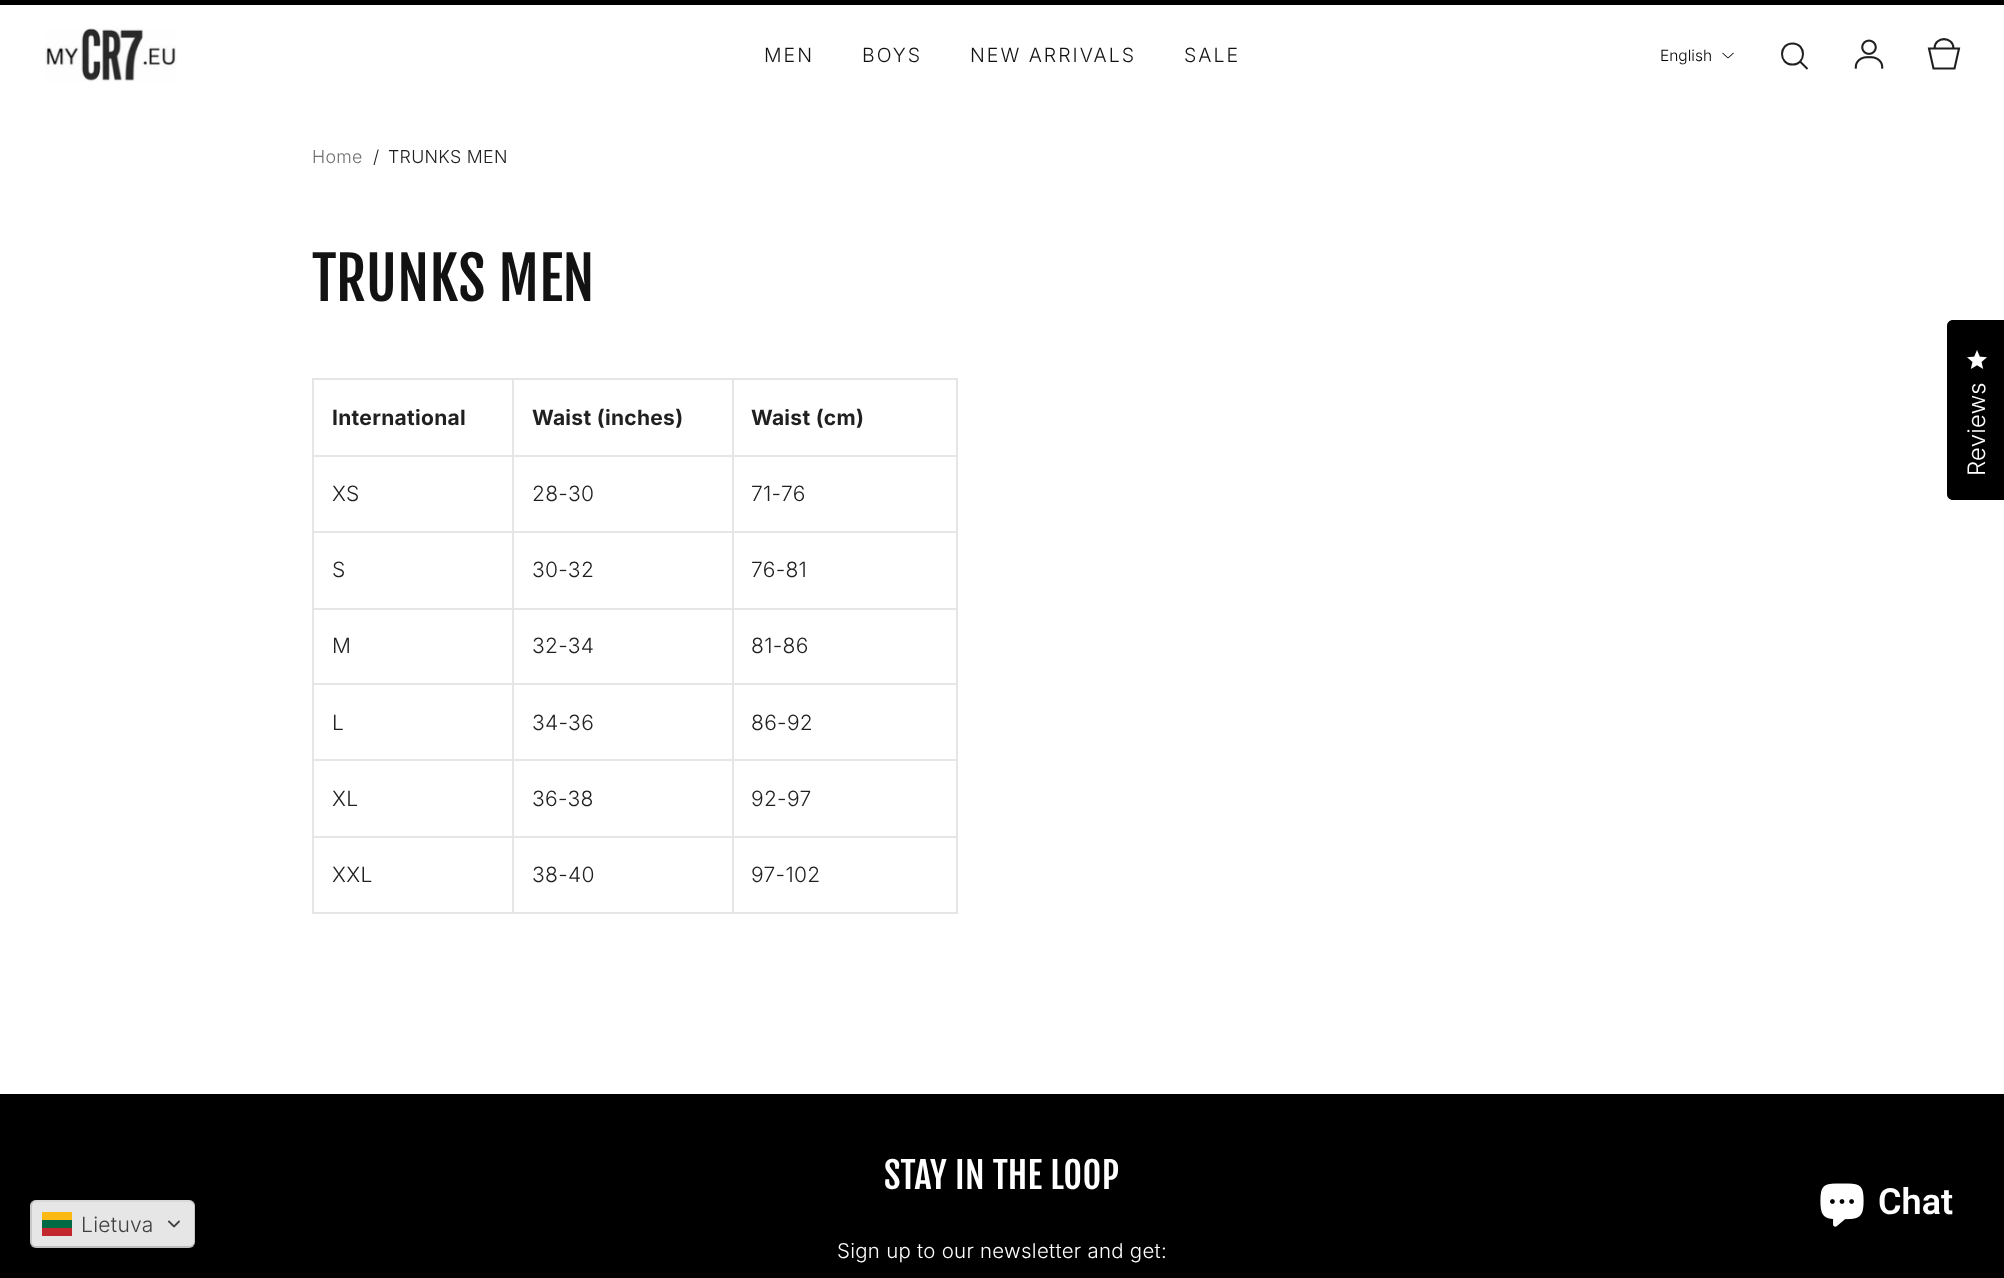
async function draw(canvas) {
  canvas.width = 2004;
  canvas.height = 1278;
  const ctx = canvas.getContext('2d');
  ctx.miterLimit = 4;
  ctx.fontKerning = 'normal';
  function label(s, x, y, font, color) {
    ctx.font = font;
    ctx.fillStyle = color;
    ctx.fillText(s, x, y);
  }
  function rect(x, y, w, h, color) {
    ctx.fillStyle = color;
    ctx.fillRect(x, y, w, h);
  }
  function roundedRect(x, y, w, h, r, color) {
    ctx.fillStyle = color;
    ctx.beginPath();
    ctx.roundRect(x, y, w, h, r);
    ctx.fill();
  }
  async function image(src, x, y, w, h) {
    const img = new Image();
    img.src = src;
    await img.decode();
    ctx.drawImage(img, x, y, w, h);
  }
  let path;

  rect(0, 0, 2004, 1278, '#fff');
  rect(0, 0, 2004, 5, '#000');
  await image('assets/img1.png', 45, 28, 132, 54);
  ctx.letterSpacing = '2px';
  label('MEN', 764, 62, '300 19.5px Inter', '#121212');
  label('BOYS', 862, 62, '300 19.5px Inter', '#121212');
  label('NEW ARRIVALS', 970, 62, '300 19.5px Inter', '#121212');
  label('SALE', 1184, 62, '300 19.5px Inter', '#121212');
  ctx.letterSpacing = '0px';
  label('English', 1660, 61, '300 15.5px Inter', '#000');
  await image('assets/img2.png', 1722, 52, 12, 7);
  path = new Path2D('M1792.5 64.5C1806.5 64.5 1806.5 43.5 1792.5 43.5C1778.5 43.5 1778.5 64.5 1792.5 64.5ZM1807.5 69L1800 61.5');
  ctx.strokeStyle = '#202020';
  ctx.lineWidth = 2;
  ctx.stroke(path);
  await image('assets/img3.png', 1854, 39, 30, 30);
  path = new Path2D('M1959 48.5H1929L1933.5 68.5H1954.5ZM1953.5 48.5C1953.5 36 1934.5 36 1934.5 48.5');
  ctx.lineWidth = 2.1;
  ctx.stroke(path);
  ctx.letterSpacing = '0.3px';
  label('Home', 312, 163, '300 17.75px Inter', '#717171');
  label('/', 373, 163, '300 17.75px Inter', '#202020');
  label('TRUNKS MEN', 388, 163, '300 17.75px Inter', '#202020');
  label('TRUNKS MEN', 312, 301, '58.5px Fjalla One', '#121212');
  rect(312, 378, 645, 2, '#e6e6e6');
  rect(956, 378, 2, 536, '#e6e6e6');
  rect(312, 912, 645, 2, '#e6e6e6');
  rect(312, 378, 2, 536, '#e6e6e6');
  label('International', 332, 425, 'bold 21px Inter', '#202020');
  rect(732, 455, 225, 2, '#e6e6e6');
  rect(732, 531, 225, 2, '#e6e6e6');
  rect(732, 608, 225, 2, '#e6e6e6');
  rect(732, 683, 225, 2, '#e6e6e6');
  rect(732, 759, 225, 2, '#e6e6e6');
  rect(732, 836, 225, 2, '#e6e6e6');
  rect(732, 836, 2, 78, '#e6e6e6');
  rect(512, 836, 222, 2, '#e6e6e6');
  rect(732, 759, 2, 78, '#e6e6e6');
  rect(512, 759, 222, 2, '#e6e6e6');
  rect(732, 683, 2, 78, '#e6e6e6');
  rect(512, 683, 222, 2, '#e6e6e6');
  rect(732, 608, 2, 76, '#e6e6e6');
  rect(512, 608, 222, 2, '#e6e6e6');
  rect(732, 531, 2, 78, '#e6e6e6');
  rect(512, 531, 222, 2, '#e6e6e6');
  rect(732, 455, 2, 78, '#e6e6e6');
  rect(512, 455, 222, 2, '#e6e6e6');
  rect(512, 836, 2, 78, '#e6e6e6');
  rect(312, 836, 201, 2, '#e6e6e6');
  rect(512, 759, 2, 78, '#e6e6e6');
  rect(312, 759, 201, 2, '#e6e6e6');
  rect(512, 683, 2, 78, '#e6e6e6');
  rect(312, 683, 201, 2, '#e6e6e6');
  rect(512, 608, 2, 76, '#e6e6e6');
  rect(312, 608, 201, 2, '#e6e6e6');
  rect(512, 531, 2, 78, '#e6e6e6');
  rect(312, 531, 201, 2, '#e6e6e6');
  rect(512, 455, 2, 78, '#e6e6e6');
  rect(312, 455, 201, 2, '#e6e6e6');
  rect(512, 378, 2, 78, '#e6e6e6');
  label('Waist (inches)', 532, 425, 'bold 21px Inter', '#202020');
  rect(732, 378, 2, 78, '#e6e6e6');
  label('Waist (cm)', 751, 425, 'bold 21px Inter', '#202020');
  label('XS', 332, 501, '300 21px Inter', '#202020');
  label('28-30', 532, 501, '300 21px Inter', '#202020');
  label('71-76', 751, 501, '300 21px Inter', '#202020');
  label('S', 332, 577, '300 21px Inter', '#202020');
  label('30-32', 532, 577, '300 21px Inter', '#202020');
  label('76-81', 751, 577, '300 21px Inter', '#202020');
  label('M', 332, 653, '300 21px Inter', '#202020');
  label('32-34', 532, 653, '300 21px Inter', '#202020');
  label('81-86', 751, 653, '300 21px Inter', '#202020');
  label('L', 332, 730, '300 21px Inter', '#202020');
  label('34-36', 532, 730, '300 21px Inter', '#202020');
  label('86-92', 751, 730, '300 21px Inter', '#202020');
  label('XL', 332, 806, '300 21px Inter', '#202020');
  label('36-38', 532, 806, '300 21px Inter', '#202020');
  label('92-97', 751, 806, '300 21px Inter', '#202020');
  label('XXL', 332, 882, '300 21px Inter', '#202020');
  label('38-40', 532, 882, '300 21px Inter', '#202020');
  label('97-102', 751, 882, '300 21px Inter', '#202020');
  ctx.fillStyle = '#000';
  path = new Path2D('M1953 320H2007V500H1953C1949.5 500 1947 497.5 1947 494V326C1947 322.5 1949.5 320 1953 320Z');
  ctx.fill(path);
  await image('assets/img4.png', 1967, 350, 20, 19);
  ctx.font = '300 24px "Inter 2"';
  ctx.fillStyle = '#fff';
  ctx.save();
  ctx.translate(1985, 476);
  ctx.rotate(-89.9 * Math.PI / 180);
  ctx.fillText('Reviews', 0, 0);
  ctx.restore();
  rect(0, 1094, 2004, 184, '#000');
  label('STAY IN THE LOOP', 884, 1189, '36px Fjalla One', '#fff');
  label('Sign up to our newsletter and get:', 837, 1258, '300 20.4px Inter', '#fff');
  await image('assets/img5.png', 1820, 1183, 44, 44);
  ctx.letterSpacing = '0px';
  label('Chat', 1878, 1214, '600 36px Roboto', '#fff');
  roundedRect(30, 1200, 165, 48, 6, '#e6e6e6');
  ctx.fillStyle = '#cccccc80';
  path = new Path2D('M36 1202H189C192 1202 195 1204 195 1208V1206C195 1203 192 1200 189 1200H36C33 1200 30 1203 30 1206V1208C30 1204 33 1202 36 1202Z');
  ctx.fill(path);
  ctx.fillStyle = '#0000002b';
  path = new Path2D('M30 1240V1242C30 1245 33 1248 36 1248H189C192 1248 195 1245 195 1242V1240C195 1244 192 1246 189 1246H36C33 1246 30 1244 30 1240Z');
  ctx.fill(path);
  ctx.fillStyle = '#00000021';
  path = new Path2D('M188 1248C196 1248 195 1242 195 1236V1212C195 1206 196 1200 188 1200C191 1200 194 1203 194 1206V1242C194 1245 191 1248 188 1248Z');
  ctx.fill(path);
  path = new Path2D('M36 1200C33 1200 30 1203 30 1206V1242C30 1245 33 1248 36 1248H38C34 1248 32 1245 32 1242V1206C32 1203 34 1200 38 1200Z');
  ctx.fill(path);
  rect(42, 1228, 30, 8, '#c1272d');
  rect(42, 1220, 30, 8, '#006a44');
  rect(42, 1212, 30, 8, '#fdb913');
  ctx.letterSpacing = '0.3px';
  label('Lietuva', 81, 1232, '300 21px Inter', '#404040');
  await image('assets/img6.png', 168, 1220, 12, 8);
}

draw(document.querySelector('canvas'));
